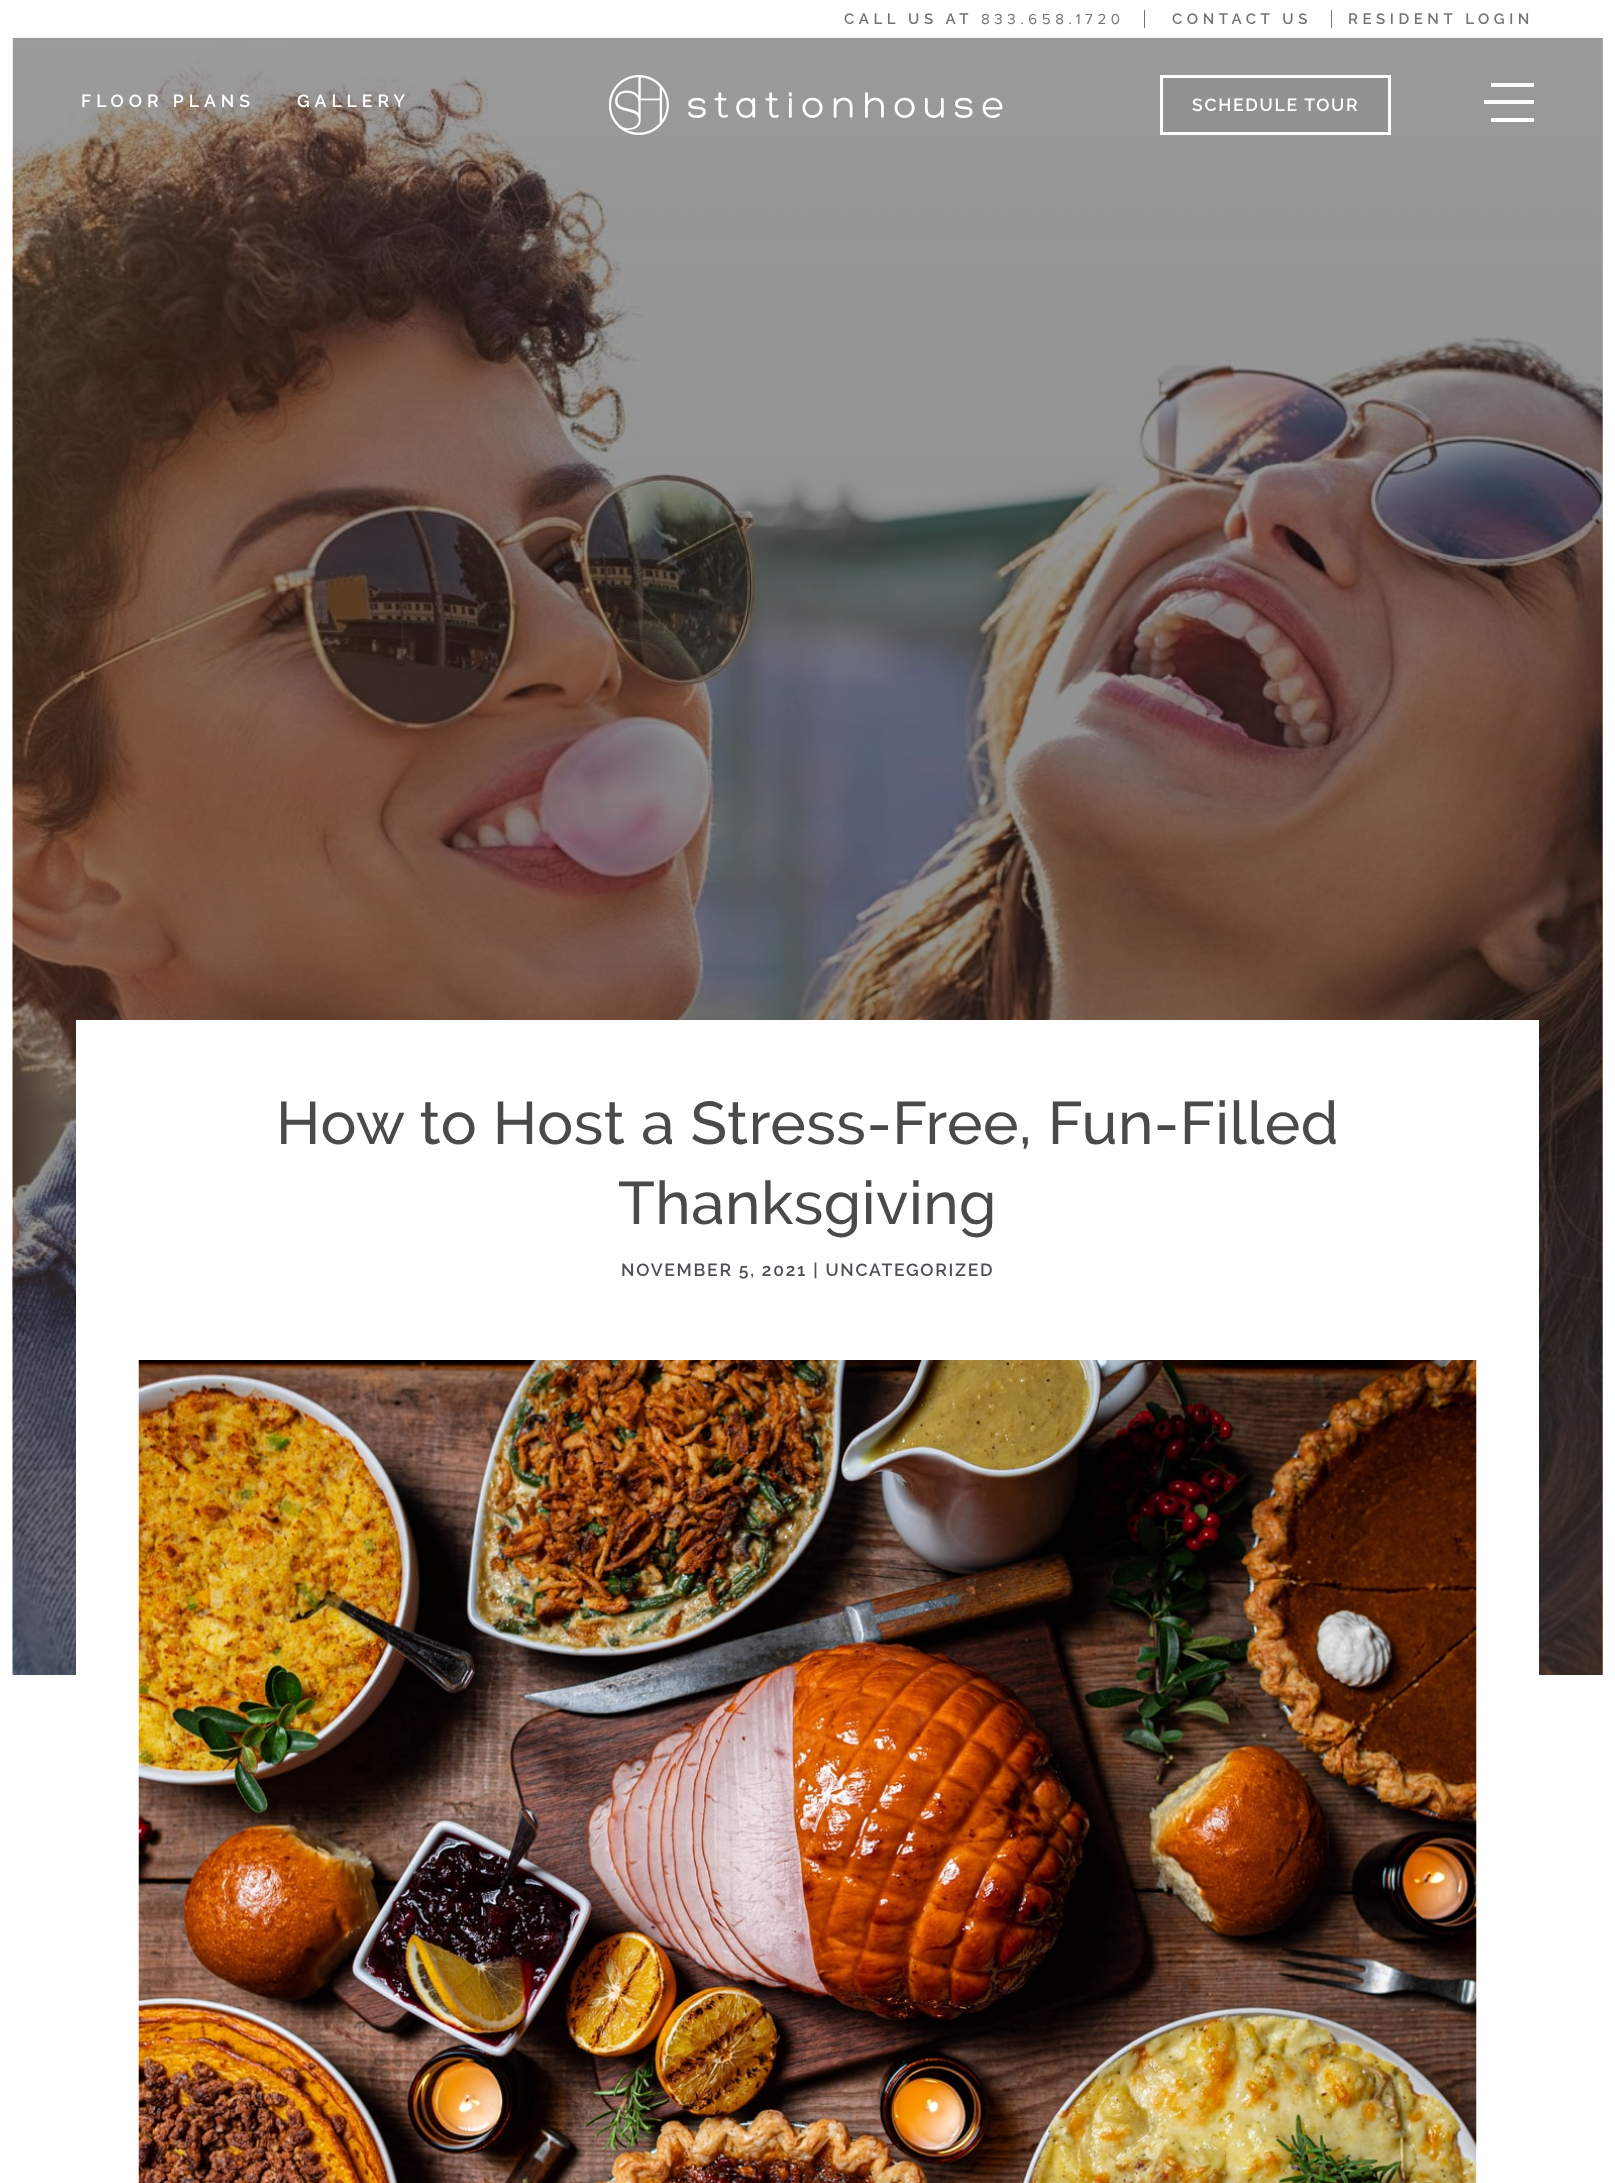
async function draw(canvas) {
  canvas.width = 1615;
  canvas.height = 2183;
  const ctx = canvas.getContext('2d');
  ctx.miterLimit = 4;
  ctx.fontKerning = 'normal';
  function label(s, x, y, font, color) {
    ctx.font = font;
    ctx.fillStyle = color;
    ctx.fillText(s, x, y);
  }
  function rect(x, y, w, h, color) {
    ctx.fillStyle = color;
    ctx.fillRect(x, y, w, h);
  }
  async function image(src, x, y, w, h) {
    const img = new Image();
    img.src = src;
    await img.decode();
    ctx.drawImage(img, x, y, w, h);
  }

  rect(0, 0, 1615, 2183, '#fff');
  rect(1602, 38, 1, 1637, '#b3b3b3');
  ctx.letterSpacing = '4.6px';
  label('CALL US AT', 844, 24, '600 15px Raleway', '#747474');
  label('833.658.1720', 981, 24, '15px Proxima Nova', '#747474');
  rect(1144, 10, 1, 18, '#747474');
  label('CONTACT US', 1172, 24, '600 15px Raleway', '#747474');
  rect(1331, 10, 1, 18, '#747474');
  label('RESIDENT LOGIN', 1348, 24, '600 15px Raleway', '#747474');
  await image('assets/img2.png', 12, 38, 1591, 1637);
  await image('assets/img3.png', 12, 37, 1591, 1638);
  ctx.letterSpacing = '5px';
  label('FLOOR PLANS', 81, 107, '600 17.5px Raleway', '#fff');
  label('GALLERY', 297, 107, '600 17.5px Raleway', '#fff');
  await image('assets/img1.png', 609, 75, 394, 60);
  ctx.fillStyle = '#929292';
  ctx.beginPath();
  ctx.rect(1161.5, 76.5, 228, 57);
  ctx.fill();
  ctx.strokeStyle = '#fff';
  ctx.lineWidth = 3;
  ctx.stroke();
  ctx.letterSpacing = '1.75px';
  label('SCHEDULE TOUR', 1192, 111, '600 17.5px Raleway', '#fff');
  rect(1491, 83, 43, 4, '#fff');
  rect(1484, 100, 50, 4, '#fff');
  rect(1491, 118, 43, 4, '#fff');
  rect(76, 1020, 1463, 655, '#fff');
  ctx.letterSpacing = '0.5px';
  label('How to Host a Stress-Free, Fun-Filled', 276, 1144, '500 60px Raleway', '#4a4a4a');
  label('Thanksgiving', 618, 1224, '500 60px Raleway', '#4a4a4a');
  ctx.letterSpacing = '1.75px';
  label('NOVEMBER 5, 2021 | UNCATEGORIZED', 621, 1276, '600 17.5px Raleway', '#4c4f54');
  await image('assets/img4.png', 138, 1360, 1339, 823);
}

draw(document.querySelector('canvas'));
